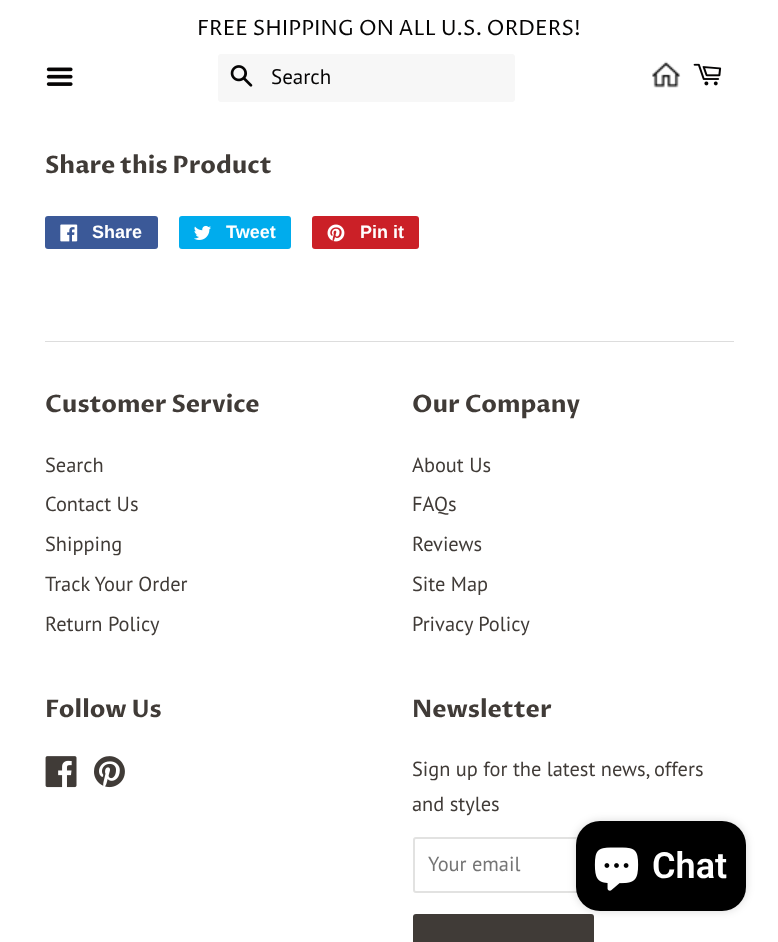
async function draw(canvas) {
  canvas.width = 778;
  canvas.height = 942;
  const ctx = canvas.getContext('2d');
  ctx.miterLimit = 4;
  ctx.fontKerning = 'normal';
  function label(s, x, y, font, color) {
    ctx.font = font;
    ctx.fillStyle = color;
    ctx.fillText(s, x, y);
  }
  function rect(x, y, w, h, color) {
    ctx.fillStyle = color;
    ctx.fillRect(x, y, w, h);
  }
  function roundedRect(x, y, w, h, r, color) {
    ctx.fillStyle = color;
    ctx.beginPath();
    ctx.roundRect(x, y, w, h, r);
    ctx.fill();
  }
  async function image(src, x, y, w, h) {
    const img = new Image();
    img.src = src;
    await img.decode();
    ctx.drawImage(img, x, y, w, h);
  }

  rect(0, 0, 778, 942, '#fff');
  label('FREE SHIPPING ON ALL U.S. ORDERS!', 197, 35, '21px Proza Libre', '#050404');
  await image('assets/img1.png', 46, 67, 27, 19);
  roundedRect(218, 54, 297, 48, 3, '#f7f7f7');
  await image('assets/img2.png', 230, 65, 23, 22);
  label('Search', 271, 84, '21px PT Sans', '#050404');
  await image('assets/img3.png', 652, 61, 29, 27);
  await image('assets/img4.png', 693, 63, 29, 23);
  label('Share this Product', 45, 173, 'bold 24px Proza Libre', '#403b37');
  roundedRect(45, 216, 113, 33, 3, '#3b5998');
  await image('assets/img5.png', 60, 224, 18, 18);
  label('Share', 92, 238, 'bold 18px Liberation Sans', '#fff');
  roundedRect(179, 216, 112, 33, 3, '#00aced');
  await image('assets/img6.png', 194, 225, 17, 15);
  label('Tweet', 226, 238, 'bold 18px Liberation Sans', '#fff');
  roundedRect(312, 216, 107, 33, 3, '#cb2027');
  await image('assets/img7.png', 327, 224, 18, 18);
  label('Pin it', 360, 238, 'bold 18px Liberation Sans', '#fff');
  rect(45, 341, 689, 1, '#ddd');
  label('Customer Service', 45, 412, 'bold 24px Proza Libre', '#403b37');
  label('Search', 45, 472, '20.4px PT Sans', '#403b37');
  label('Contact Us', 45, 511, '20.4px PT Sans', '#403b37');
  label('Shipping', 45, 551, '20.4px PT Sans', '#403b37');
  label('Track Your Order', 45, 591, '20.4px PT Sans', '#403b37');
  label('Return Policy', 45, 631, '20.4px PT Sans', '#403b37');
  label('Our Company', 412, 412, 'bold 24px Proza Libre', '#403b37');
  label('About Us', 412, 472, '20.4px PT Sans', '#403b37');
  label('FAQs', 412, 511, '20.4px PT Sans', '#403b37');
  label('Reviews', 412, 551, '20.4px PT Sans', '#403b37');
  label('Site Map', 412, 591, '20.4px PT Sans', '#403b37');
  label('Privacy Policy', 412, 631, '20.4px PT Sans', '#403b37');
  label('Follow Us', 45, 717, 'bold 24px Proza Libre', '#403b37');
  await image('assets/img8.png', 45, 756, 32, 32);
  await image('assets/img9.png', 94, 756, 31, 32);
  label('Newsletter', 412, 717, 'bold 24px Proza Libre', '#403b37');
  label('Sign up for the latest news, offers', 412, 776, '20.4px PT Sans', '#403b37');
  label('and styles', 412, 811, '20.4px PT Sans', '#403b37');
  ctx.beginPath();
  ctx.roundRect(414, 838, 319, 54, 2);
  ctx.strokeStyle = '#e2e2e1';
  ctx.lineWidth = 2;
  ctx.stroke();
  label('Your email', 428, 871, '20.4px PT Sans', '#757575');
  roundedRect(413, 914, 181, 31, 3, '#403b37');
  ctx.fillStyle = '#00000026';
  ctx.filter = 'blur(4px)';
  ctx.beginPath();
  ctx.roundRect(576, 821, 170, 90, 24);
  ctx.fill();
  ctx.filter = 'none';
  roundedRect(576, 821, 170, 90, 24, '#000');
  await image('assets/img10.png', 594, 847, 45, 44);
  label('Chat', 652, 878, '600 36px Roboto', '#fff');
}

draw(document.querySelector('canvas'));
